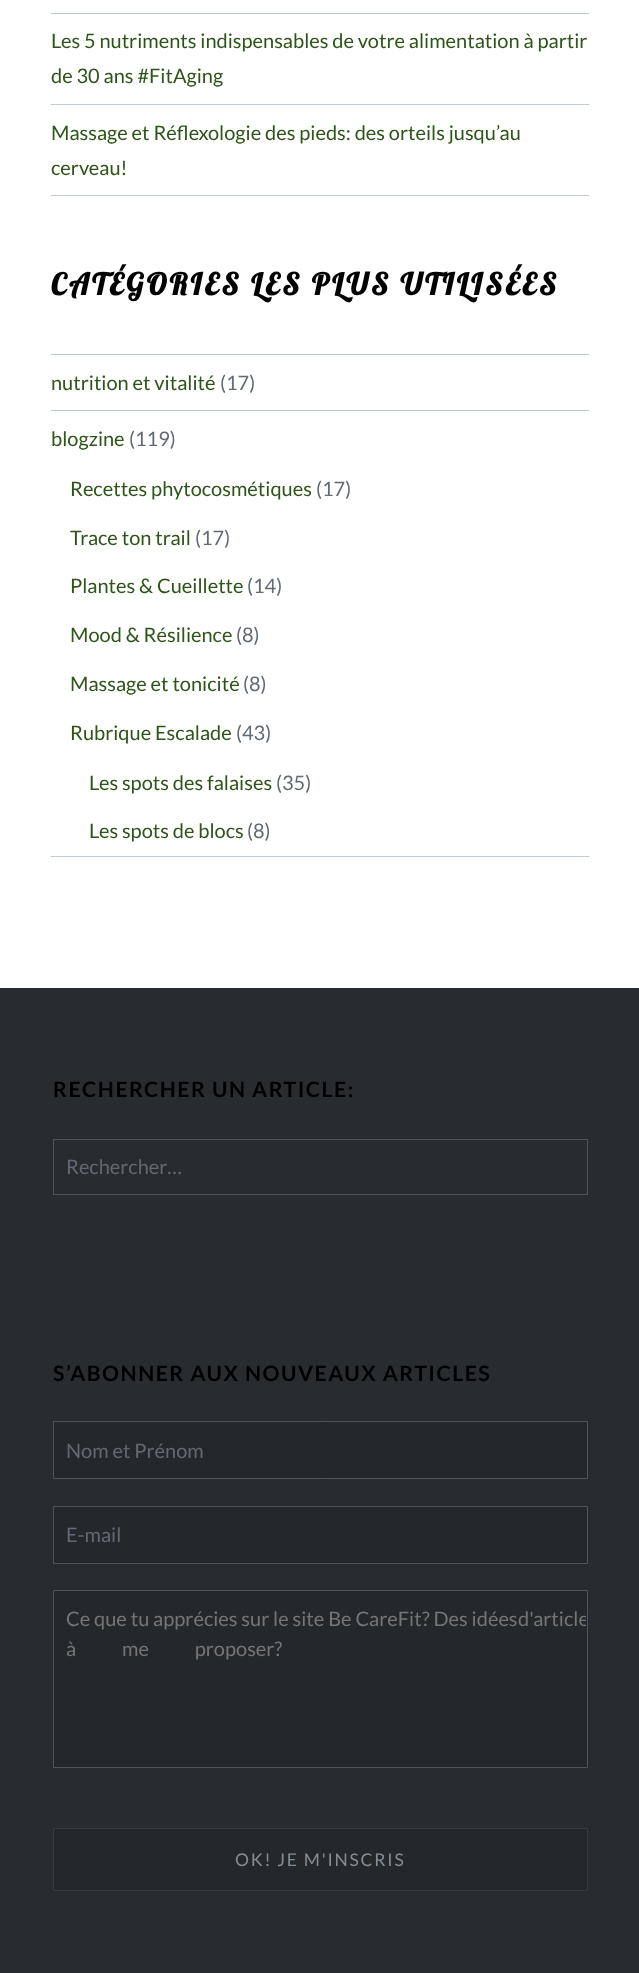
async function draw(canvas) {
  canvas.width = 639;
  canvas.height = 1973;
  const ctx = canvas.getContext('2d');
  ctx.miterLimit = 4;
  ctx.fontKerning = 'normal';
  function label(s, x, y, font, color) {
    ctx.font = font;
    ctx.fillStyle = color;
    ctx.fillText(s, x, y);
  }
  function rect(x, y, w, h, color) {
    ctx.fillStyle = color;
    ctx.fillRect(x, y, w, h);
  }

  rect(0, 0, 639, 1973, '#fff');
  rect(51, 13, 538, 1, '#c0c9d3');
  rect(51, 104, 538, 1, '#c0c9d3');
  label('Les 5 nutriments indispensables de votre alimentation à partir', 51, 48, '20px Lato', '#2e5419');
  label('de 30 ans #FitAging', 51, 83, '20px Lato', '#2e5419');
  rect(51, 195, 538, 1, '#c0c9d3');
  label('Massage et Réflexologie des pieds: des orteils jusqu’au', 51, 140, '20px Lato', '#2e5419');
  label('cerveau!', 51, 175, '20px Lato', '#2e5419');
  ctx.letterSpacing = '3px';
  label('CATÉGORIES LES PLUS UTILISÉES', 51, 295, 'bold 30px Lobster', '#000');
  rect(51, 354, 538, 1, '#c0c9d3');
  rect(51, 410, 538, 1, '#c0c9d3');
  ctx.letterSpacing = '0px';
  label('nutrition et vitalité', 51, 390, '20px Lato', '#2e5419');
  label('(17)', 220, 390, '20px Lato', '#616a74');
  rect(51, 856, 538, 1, '#c0c9d3');
  label('blogzine', 51, 446, '20px Lato', '#2e5419');
  label('(119)', 129, 446, '20px Lato', '#616a74');
  label('Recettes phytocosmétiques', 70, 496, '20px Lato', '#2e5419');
  label('(17)', 316, 496, '20px Lato', '#616a74');
  label('Trace ton trail', 70, 545, '20px Lato', '#2e5419');
  label('(17)', 195, 545, '20px Lato', '#616a74');
  label('Plantes & Cueillette', 70, 593, '20px Lato', '#2e5419');
  label('(14)', 247, 593, '20px Lato', '#616a74');
  label('Mood & Résilience', 70, 642, '20px Lato', '#2e5419');
  label('(8)', 236, 642, '20px Lato', '#616a74');
  label('Massage et tonicité', 70, 691, '20px Lato', '#2e5419');
  label('(8)', 243, 691, '20px Lato', '#616a74');
  label('Rubrique Escalade', 70, 740, '20px Lato', '#2e5419');
  label('(43)', 236, 740, '20px Lato', '#616a74');
  label('Les spots des falaises', 89, 790, '20px Lato', '#2e5419');
  label('(35)', 276, 790, '20px Lato', '#616a74');
  label('Les spots de blocs', 89, 838, '20px Lato', '#2e5419');
  label('(8)', 247, 838, '20px Lato', '#616a74');
  rect(0, 988, 639, 985, '#292c2f');
  ctx.letterSpacing = '1.5px';
  label('RECHERCHER UN ARTICLE:', 53, 1097, 'bold 21.25px Lato', '#000');
  ctx.strokeStyle = '#4d545b';
  ctx.strokeRect(53.5, 1139.5, 534, 55);
  ctx.letterSpacing = '0px';
  label('Rechercher…', 66, 1174, '20px Lato', '#616a74');
  ctx.letterSpacing = '1.5px';
  label('S’ABONNER AUX NOUVEAUX ARTICLES', 53, 1381, 'bold 21.25px Lato', '#000');
  ctx.fillStyle = '#25282a';
  ctx.beginPath();
  ctx.rect(53.5, 1421.5, 534, 57);
  ctx.fill();
  ctx.stroke();
  ctx.letterSpacing = '0px';
  label('Nom et Prénom', 66, 1458, '20px Lato', '#616a74');
  ctx.fillStyle = '#25282a';
  ctx.beginPath();
  ctx.rect(53.5, 1506.5, 534, 57);
  ctx.fill();
  ctx.stroke();
  label('E-mail', 66, 1542, '20px Lato', '#616a74');
  ctx.fillStyle = '#25282a';
  ctx.beginPath();
  ctx.rect(53.5, 1590.5, 534, 177);
  ctx.fill();
  ctx.stroke();
  label('Ce que tu apprécies sur le site Be CareFit? Des idées', 66, 1626, '20px Lato', '#757575');
  ctx.save();
  ctx.beginPath();
  ctx.rect(54, 1591, 532, 175);
  ctx.clip();
  label('d\'article', 518, 1626, '20px Lato', '#757575');
  ctx.restore();
  ctx.wordSpacing = '42px';
  label('à me proposer?', 66, 1656, '20px Lato', '#757575');
  ctx.fillStyle = '#25282a';
  ctx.beginPath();
  ctx.rect(53.5, 1828.5, 534, 62);
  ctx.fill();
  ctx.strokeStyle = '#363b40';
  ctx.stroke();
  ctx.letterSpacing = '1.75px';
  ctx.wordSpacing = '0px';
  label('OK! JE M\'INSCRIS', 235, 1866, '17.5px Lato', '#858d95');
}

draw(document.querySelector('canvas'));
